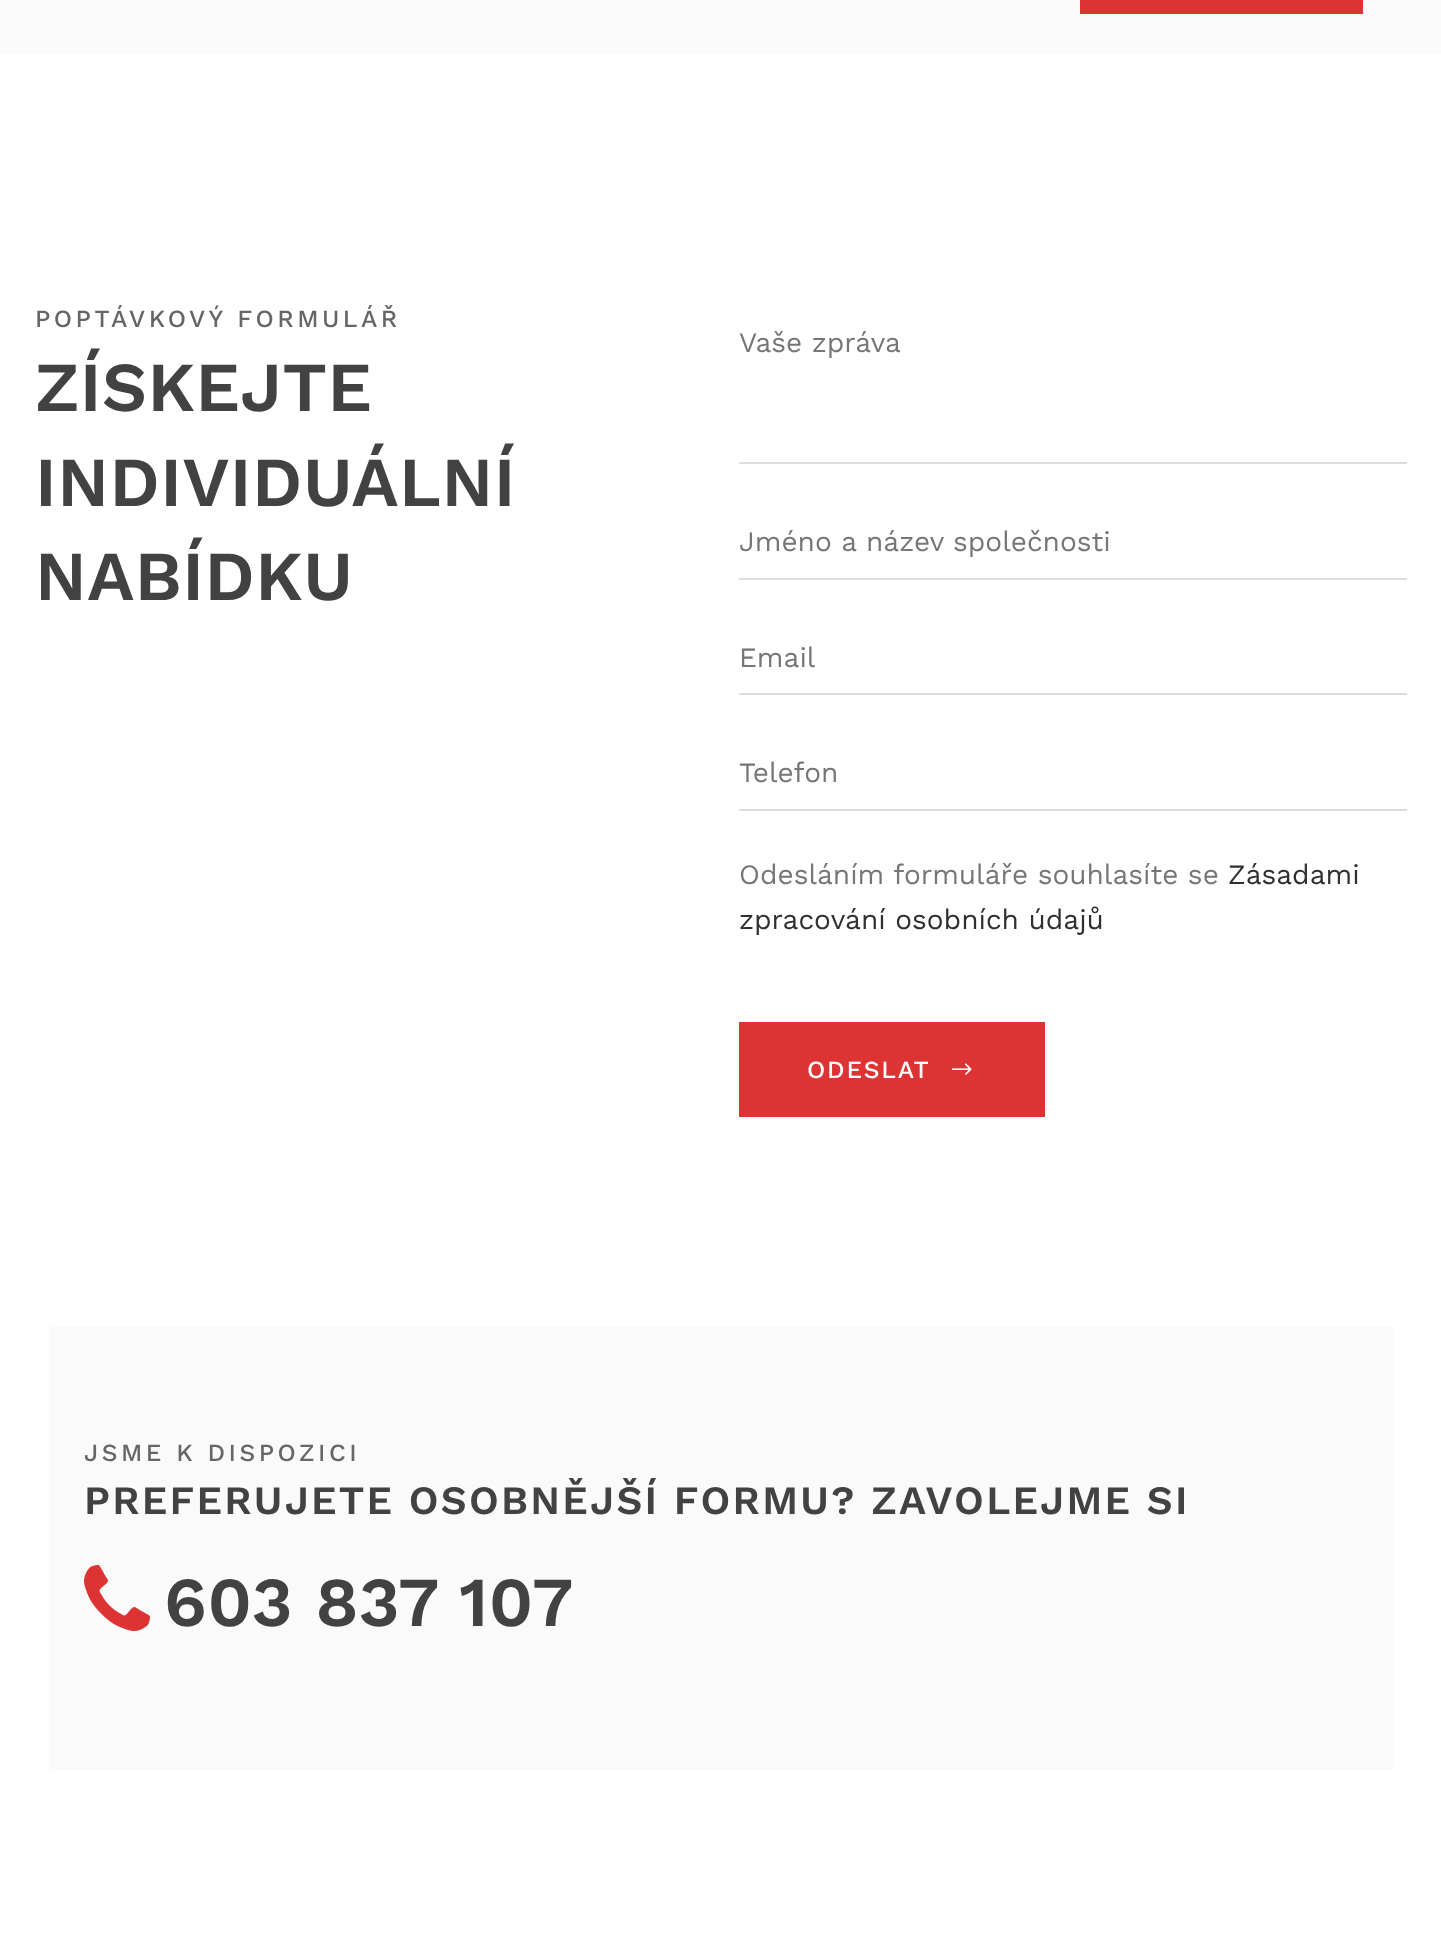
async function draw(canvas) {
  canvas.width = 1441;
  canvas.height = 1945;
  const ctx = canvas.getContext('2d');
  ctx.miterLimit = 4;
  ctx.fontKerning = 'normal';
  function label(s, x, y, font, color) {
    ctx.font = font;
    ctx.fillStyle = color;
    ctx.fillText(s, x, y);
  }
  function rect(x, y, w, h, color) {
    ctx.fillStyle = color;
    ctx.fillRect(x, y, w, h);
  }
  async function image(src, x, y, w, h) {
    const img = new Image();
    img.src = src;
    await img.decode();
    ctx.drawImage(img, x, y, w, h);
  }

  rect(0, 0, 1441, 1945, '#fff');
  rect(0, 0, 1441, 54, '#fafafa');
  rect(1080, 0, 283, 14, '#d33');
  ctx.letterSpacing = '3.5px';
  label('POPTÁVKOVÝ FORMULÁŘ', 35, 327, '500 24.5px Work Sans', '#666');
  ctx.letterSpacing = '0.5px';
  label('ZÍSKEJTE', 35, 411, '600 70px Work Sans', '#424242');
  label('INDIVIDUÁLNÍ', 35, 506, '600 70px Work Sans', '#424242');
  label('NABÍDKU', 35, 600, '600 70px Work Sans', '#424242');
  rect(739, 462, 668, 2, '#ddd');
  ctx.letterSpacing = '0px';
  label('Vaše zpráva', 739, 352, '28px Work Sans', '#767676');
  rect(739, 578, 668, 2, '#ddd');
  label('Jméno a název společnosti', 739, 551, '28px Work Sans', '#767676');
  rect(739, 693, 668, 2, '#ddd');
  label('Email', 739, 667, '28px Work Sans', '#767676');
  rect(739, 809, 668, 2, '#ddd');
  label('Telefon', 739, 782, '28px Work Sans', '#767676');
  label('Odesláním formuláře souhlasíte se', 739, 884, '28px Work Sans', '#767676');
  label('Zásadami', 1228, 884, '28px Work Sans', '#303030');
  label('zpracování osobních údajů', 739, 929, '28px Work Sans', '#303030');
  rect(739, 1022, 306, 95, '#d33');
  ctx.letterSpacing = '1.75px';
  label('ODESLAT', 807, 1078, '500 24.5px Work Sans', '#fff');
  await image('assets/img1.png', 951, 1063, 21, 12);
  rect(49, 1327, 1344, 444, '#fafafa');
  ctx.letterSpacing = '3.5px';
  label('JSME K DISPOZICI', 84, 1461, '500 24.5px Work Sans', '#666');
  ctx.letterSpacing = '2.25px';
  label('PREFERUJETE OSOBNĚJŠÍ FORMU? ZAVOLEJME SI', 84, 1514, '600 40.25px Work Sans', '#424242');
  await image('assets/img2.png', 84, 1565, 66, 66);
  ctx.letterSpacing = '0.5px';
  label('603 837 107', 164, 1626, '600 70px Work Sans', '#424242');
}

draw(document.querySelector('canvas'));
